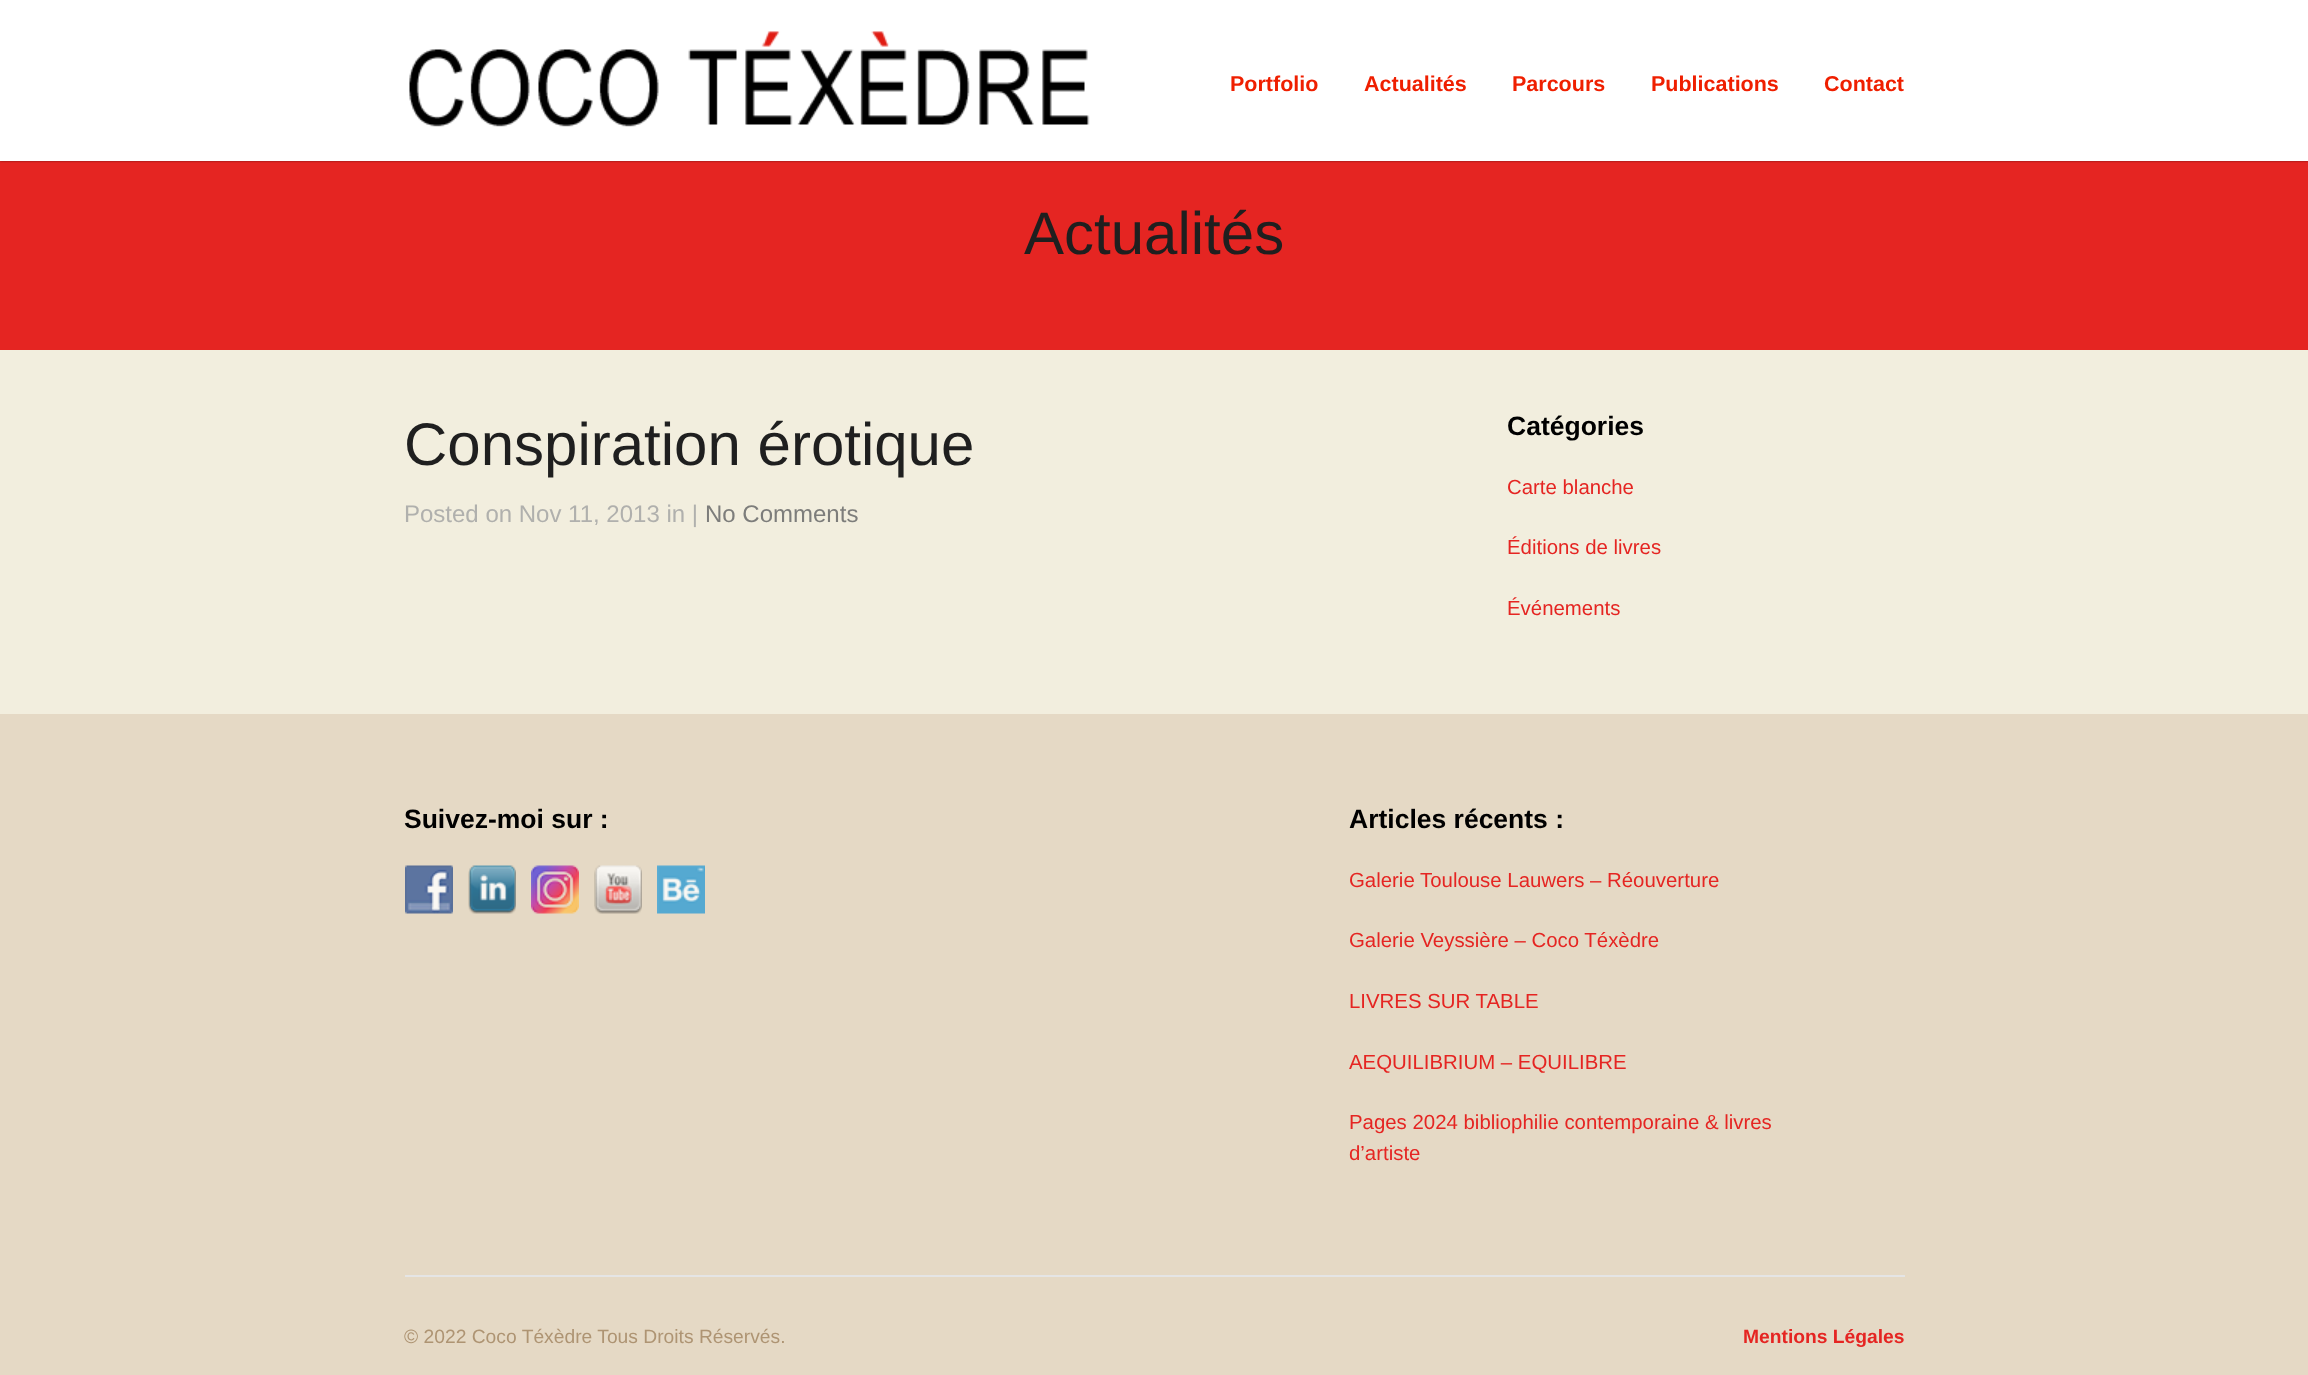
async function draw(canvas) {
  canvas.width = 2308;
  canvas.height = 1375;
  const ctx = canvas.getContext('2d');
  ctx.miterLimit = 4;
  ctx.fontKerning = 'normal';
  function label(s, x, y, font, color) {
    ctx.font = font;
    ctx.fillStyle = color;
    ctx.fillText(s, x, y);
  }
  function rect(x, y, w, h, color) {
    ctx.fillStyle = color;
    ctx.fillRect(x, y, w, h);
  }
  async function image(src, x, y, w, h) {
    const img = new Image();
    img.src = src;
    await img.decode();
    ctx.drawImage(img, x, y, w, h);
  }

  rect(0, 0, 2308, 1375, '#f2eede');
  rect(0, 161, 2308, 189, '#e52522');
  ctx.fillStyle = '#00000080';
  ctx.filter = 'blur(1px)';
  ctx.beginPath();
  ctx.rect(0, 0, 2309, 161);
  ctx.fill();
  ctx.filter = 'none';
  rect(0, 0, 2308, 161, '#fff');
  await image('assets/img1.png', 409, 31, 681, 96);
  label('Portfolio', 1230, 91, 'bold 21.5px Liberation Sans', '#ef1f00');
  label('Actualités', 1364, 91, 'bold 21.5px Liberation Sans', '#ef1f00');
  label('Parcours', 1512, 91, 'bold 21.5px Liberation Sans', '#ef1f00');
  label('Publications', 1651, 91, 'bold 21.5px Liberation Sans', '#ef1f00');
  label('Contact', 1824, 91, 'bold 21.5px Liberation Sans', '#ef1f00');
  label('Actualités', 1024, 254, '60px Liberation Sans', '#1f1f1f');
  label('Conspiration érotique', 404, 465, '60px Liberation Sans', '#1f1f1f');
  label('Posted on Nov 11, 2013 in |', 404, 522, '24px Liberation Sans', '#b0b0ad');
  label('No Comments', 705, 522, '24px Liberation Sans', '#7d7d7b');
  label('Catégories', 1507, 435, 'bold 26.5px Liberation Sans', '#000');
  label('Carte blanche', 1507, 494, '20.4px Liberation Sans', '#e52522');
  label('Éditions de livres', 1507, 554, '20.4px Liberation Sans', '#e52522');
  label('Événements', 1507, 615, '20.4px Liberation Sans', '#e52522');
  rect(0, 714, 2308, 661, '#e5d9c5');
  label('Suivez-moi sur :', 404, 828, 'bold 26.5px Liberation Sans', '#000');
  await image('assets/img2.png', 405, 865, 48, 49);
  await image('assets/img3.png', 468, 865, 48, 49);
  await image('assets/img4.png', 531, 865, 48, 49);
  await image('assets/img5.png', 594, 865, 48, 49);
  await image('assets/img6.png', 657, 865, 48, 49);
  label('Articles récents :', 1349, 828, 'bold 26.5px Liberation Sans', '#000');
  label('Galerie Toulouse Lauwers – Réouverture', 1349, 887, '20.4px Liberation Sans', '#e52522');
  label('Galerie Veyssière – Coco Téxèdre', 1349, 947, '20.4px Liberation Sans', '#e52522');
  label('LIVRES SUR TABLE', 1349, 1008, '20.4px Liberation Sans', '#e52522');
  label('AEQUILIBRIUM – EQUILIBRE', 1349, 1069, '20.4px Liberation Sans', '#e52522');
  label('Pages 2024 bibliophilie contemporaine & livres', 1349, 1129, '20.4px Liberation Sans', '#e52522');
  label('d’artiste', 1349, 1160, '20.4px Liberation Sans', '#e52522');
  rect(405, 1275, 1500, 2, '#e5e5e5');
  label('© 2022 Coco Téxèdre Tous Droits Réservés.', 404, 1343, '19.25px Liberation Sans', '#ae9473');
  label('Mentions Légales', 1743, 1343, 'bold 19.25px Liberation Sans', '#e52522');
}

draw(document.querySelector('canvas'));
